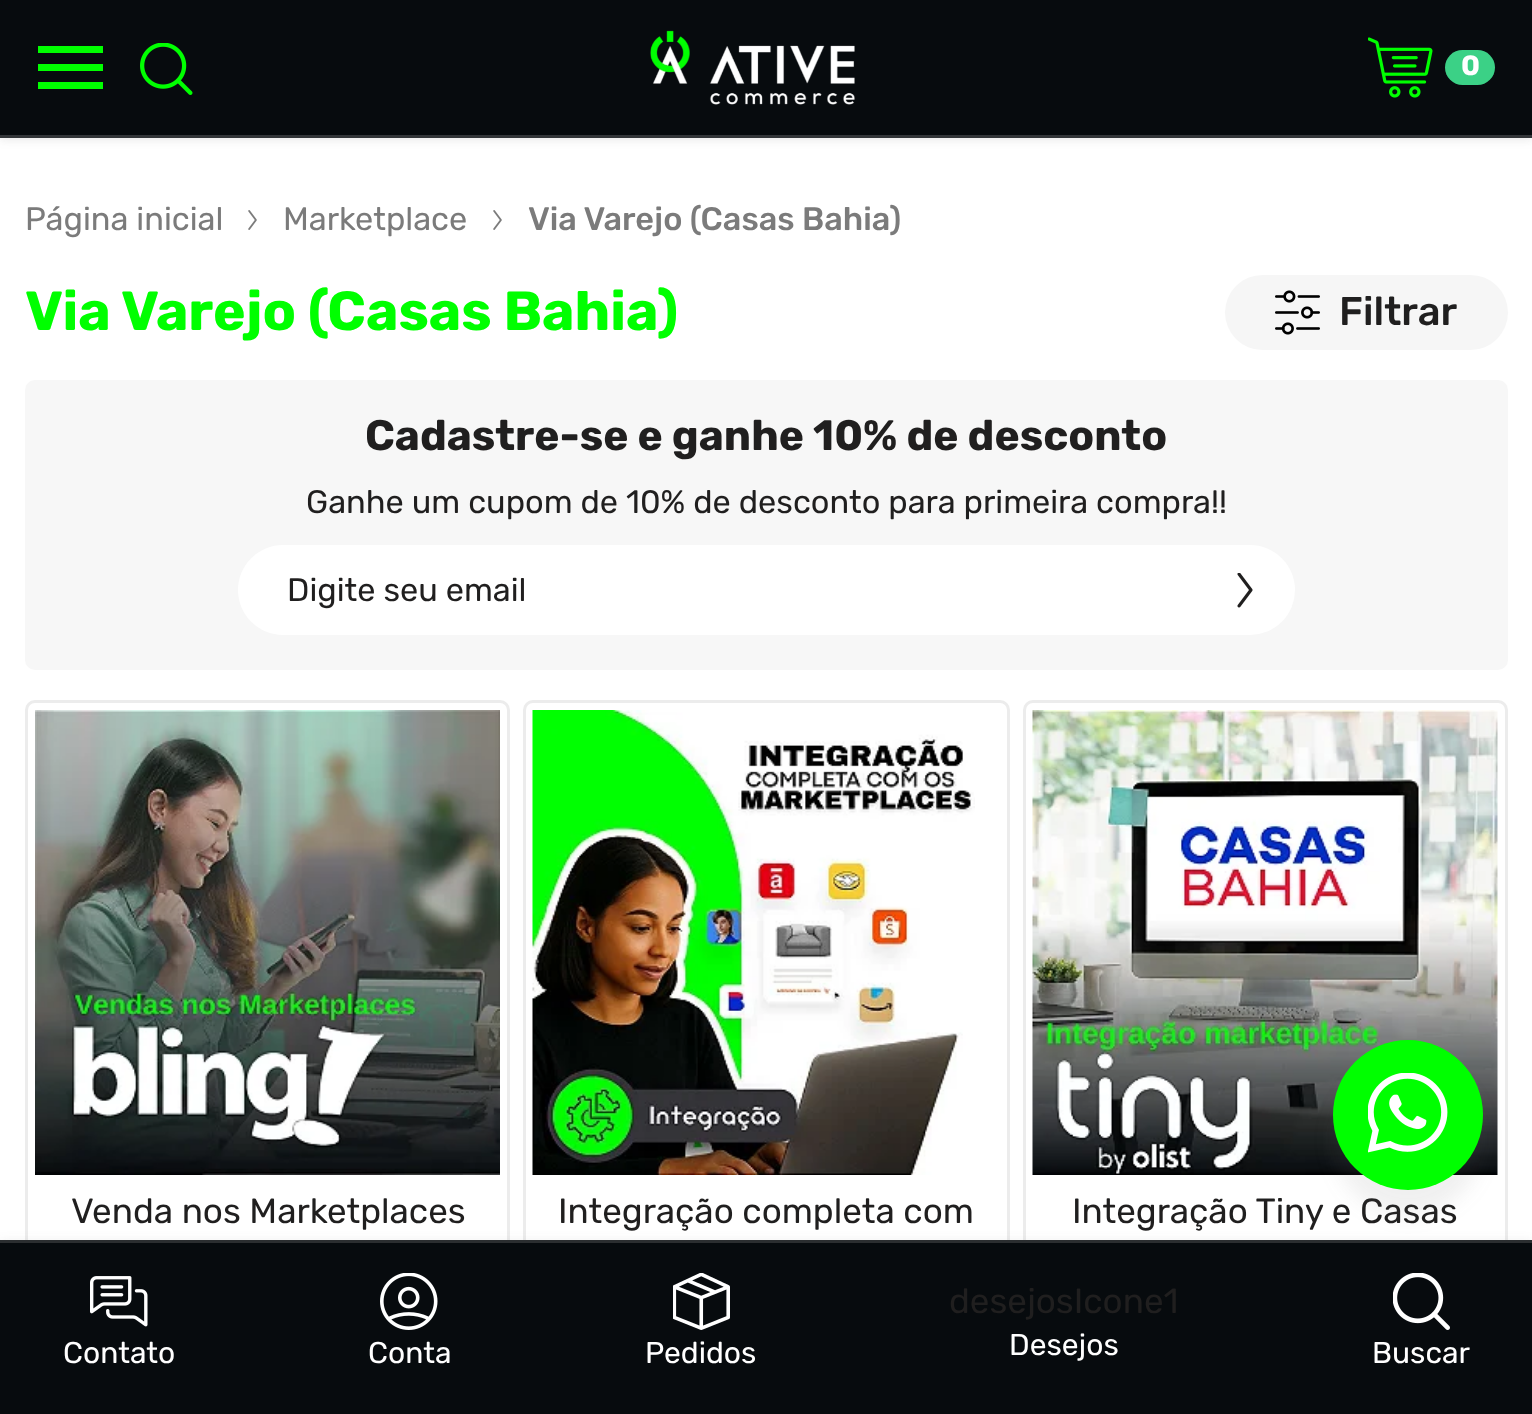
async function draw(canvas) {
  canvas.width = 1532;
  canvas.height = 1414;
  const ctx = canvas.getContext('2d');
  ctx.miterLimit = 4;
  ctx.fontKerning = 'normal';
  function label(s, x, y, font, color) {
    ctx.font = font;
    ctx.fillStyle = color;
    ctx.fillText(s, x, y);
  }
  function rect(x, y, w, h, color) {
    ctx.fillStyle = color;
    ctx.fillRect(x, y, w, h);
  }
  function roundedRect(x, y, w, h, r, color) {
    ctx.fillStyle = color;
    ctx.beginPath();
    ctx.roundRect(x, y, w, h, r);
    ctx.fill();
  }
  async function image(src, x, y, w, h) {
    const img = new Image();
    img.src = src;
    await img.decode();
    ctx.drawImage(img, x, y, w, h);
  }

  rect(0, 0, 1532, 1414, '#fff');
  ctx.fillStyle = '#52525221';
  ctx.filter = 'blur(5px)';
  ctx.beginPath();
  ctx.rect(0, 3, 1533, 137);
  ctx.fill();
  ctx.filter = 'none';
  rect(0, 0, 1532, 135, '#070b0e');
  rect(0, 135, 1532, 3, '#333639');
  rect(38, 82, 65, 7, '#0f0');
  rect(38, 64, 65, 7, '#0f0');
  rect(38, 46, 65, 7, '#0f0');
  await image('assets/img1.png', 140, 43, 53, 52);
  await image('assets/img2.png', 650, 30, 205, 75);
  await image('assets/img3.png', 1368, 37, 65, 61);
  roundedRect(1445, 50, 50, 35, 17.5, '#3bd186');
  label('0', 1461, 75, 'bold 28px Rubik', '#fff');
  label('Página inicial', 25, 230, '32.5px Rubik', '#7b7b7b');
  await image('assets/img4.png', 248, 210, 9, 20);
  label('Marketplace', 283, 230, '32.5px Rubik', '#7b7b7b');
  await image('assets/img4.png', 493, 210, 9, 20);
  label('Via Varejo (Casas Bahia)', 528, 230, '500 32.5px Rubik', '#7b7b7b');
  label('Via Varejo (Casas Bahia)', 25, 330, 'bold 55px Rubik', '#0f0');
  roundedRect(1225, 275, 283, 75, 37.5, '#f6f6f6');
  await image('assets/img5.png', 1275, 290, 45, 45);
  label('Filtrar', 1339, 325, '500 40px Rubik', '#201f1f');
  roundedRect(25, 380, 1483, 290, 10, '#f7f7f7');
  label('Cadastre-se e ganhe 10% de desconto', 365, 450, 'bold 42.5px Rubik', '#201f1f');
  label('Ganhe um cupom de 10% de desconto para primeira compra!!', 306, 513, '32.5px Rubik', '#201f1f');
  roundedRect(238, 545, 1057, 90, 45, '#fff');
  label('Digite seu email', 287, 601, '32.5px Rubik', '#201f1f');
  await image('assets/img6.png', 1237, 573, 16, 35);
  ctx.beginPath();
  ctx.roundRect(26.5, 701.5, 482, 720, 8.5);
  ctx.strokeStyle = '#ececec';
  ctx.lineWidth = 3;
  ctx.stroke();
  await image('assets/img7.png', 35, 710, 465, 465);
  label('Venda nos Marketplaces', 71, 1223, '35px Rubik', '#201f1f');
  ctx.beginPath();
  ctx.roundRect(524.5, 701.5, 484, 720, 8.5);
  ctx.stroke();
  await image('assets/img8.png', 532, 710, 443, 465);
  label('Integração completa com', 558, 1223, '35px Rubik', '#201f1f');
  ctx.beginPath();
  ctx.roundRect(1024.5, 701.5, 482, 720, 8.5);
  ctx.stroke();
  await image('assets/img9.png', 1032, 710, 466, 465);
  label('Integração Tiny e Casas', 1072, 1223, '35px Rubik', '#201f1f');
  ctx.fillStyle = '#6767671a';
  ctx.filter = 'blur(10px)';
  ctx.beginPath();
  ctx.roundRect(1333, 1065, 150, 150, 75);
  ctx.fill();
  ctx.filter = 'none';
  ctx.fillStyle = '#0f0';
  ctx.beginPath();
  ctx.arc(1408, 1115, 75, 0, 2 * Math.PI);
  ctx.fill();
  await image('assets/img10.png', 1368, 1073, 80, 80);
  ctx.fillStyle = '#52525214';
  ctx.filter = 'blur(5px)';
  ctx.beginPath();
  ctx.rect(0, 1240, 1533, 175);
  ctx.fill();
  ctx.filter = 'none';
  rect(0, 1243, 1532, 171, '#070b0e');
  rect(0, 1240, 1532, 3, '#2b2e30');
  await image('assets/img11.png', 90, 1276, 58, 51);
  label('Contato', 63, 1363, '30px Rubik', '#fff');
  await image('assets/img12.png', 380, 1273, 58, 57);
  label('Conta', 368, 1363, '30px Rubik', '#fff');
  await image('assets/img13.png', 673, 1273, 57, 57);
  label('Pedidos', 645, 1363, '30px Rubik', '#fff');
  label('desejosIcone1', 949, 1313, '35px Rubik', '#201f1f');
  label('Desejos', 1009, 1355, '30px Rubik', '#fff');
  await image('assets/img14.png', 1393, 1273, 57, 57);
  label('Buscar', 1372, 1363, '30px Rubik', '#fff');
}

draw(document.querySelector('canvas'));
